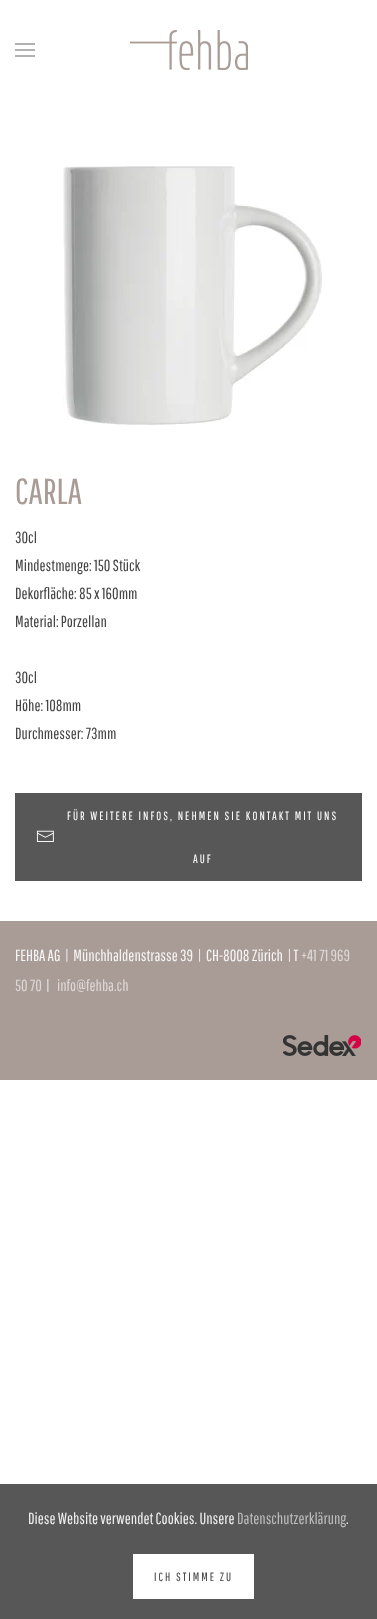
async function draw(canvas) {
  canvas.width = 377;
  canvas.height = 1619;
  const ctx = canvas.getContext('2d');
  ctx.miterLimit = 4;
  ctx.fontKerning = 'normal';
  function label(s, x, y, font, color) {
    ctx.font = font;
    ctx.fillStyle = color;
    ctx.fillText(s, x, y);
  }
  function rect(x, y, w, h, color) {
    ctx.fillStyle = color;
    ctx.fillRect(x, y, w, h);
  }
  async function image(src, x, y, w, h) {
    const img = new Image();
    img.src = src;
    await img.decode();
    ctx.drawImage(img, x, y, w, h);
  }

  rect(0, 0, 377, 1619, '#fff');
  rect(15, 43, 20, 2, '#b1b1b1');
  rect(15, 49, 20, 2, '#b1b1b1');
  rect(15, 55, 20, 2, '#b1b1b1');
  await image('assets/img1.png', 130, 30, 118, 40);
  await image('assets/img2.png', 63, 166, 259, 259);
  label('CARLA', 15, 504, '36px Pathway Gothic One', '#a99c96');
  label('30cl', 15, 543, '16px Pathway Gothic One', '#444');
  label('Mindestmenge: 150 Stück', 15, 571, '16px Pathway Gothic One', '#444');
  label('Dekorfläche: 85 x 160mm', 15, 599, '16px Pathway Gothic One', '#444');
  label('Material: Porzellan', 15, 627, '16px Pathway Gothic One', '#444');
  label('30cl', 15, 683, '16px Pathway Gothic One', '#444');
  label('Höhe: 108mm', 15, 711, '16px Pathway Gothic One', '#444');
  label('Durchmesser: 73mm', 15, 739, '16px Pathway Gothic One', '#444');
  rect(15, 793, 347, 88, '#575757');
  ctx.letterSpacing = '2px';
  label('FÜR WEITERE INFOS, NEHMEN SIE KONTAKT MIT UNS', 67, 820, '12px Pathway Gothic One', '#fff');
  await image('assets/img3.png', 36, 830, 18, 12);
  label('AUF', 193, 863, '12px Pathway Gothic One', '#fff');
  rect(0, 921, 377, 159, '#a99c96');
  ctx.letterSpacing = '0px';
  label('FEHBA AG', 15, 961, '16px Pathway Gothic One', '#f6f5f5');
  label('|  Münchhaldenstrasse 39  |  CH-8008 Zürich  | T', 65, 961, '16px Pathway Gothic One', '#f6f5f5');
  label('+41 71 969', 301, 961, '16px Pathway Gothic One', '#ddd7d5');
  label('50 70', 15, 991, '16px Pathway Gothic One', '#ddd7d5');
  label('|', 46, 991, '16px Pathway Gothic One', '#f6f5f5');
  label('info@fehba.ch', 57, 991, '16px Pathway Gothic One', '#ddd7d5');
  await image('assets/img4.png', 283, 1035, 78, 21);
  rect(0, 1484, 377, 135, '#575757');
  label('Diese Website verwendet Cookies. Unsere', 28, 1524, '16px Pathway Gothic One', '#eee');
  label('Datenschutzerklärung', 237, 1524, '16px Pathway Gothic One', '#bcbcbc');
  label('.', 346, 1524, '16px Pathway Gothic One', '#eee');
  rect(133, 1554, 121, 45, '#fff');
  ctx.letterSpacing = '2px';
  label('ICH STIMME ZU', 154, 1581, '12px Pathway Gothic One', '#444');
}

draw(document.querySelector('canvas'));
